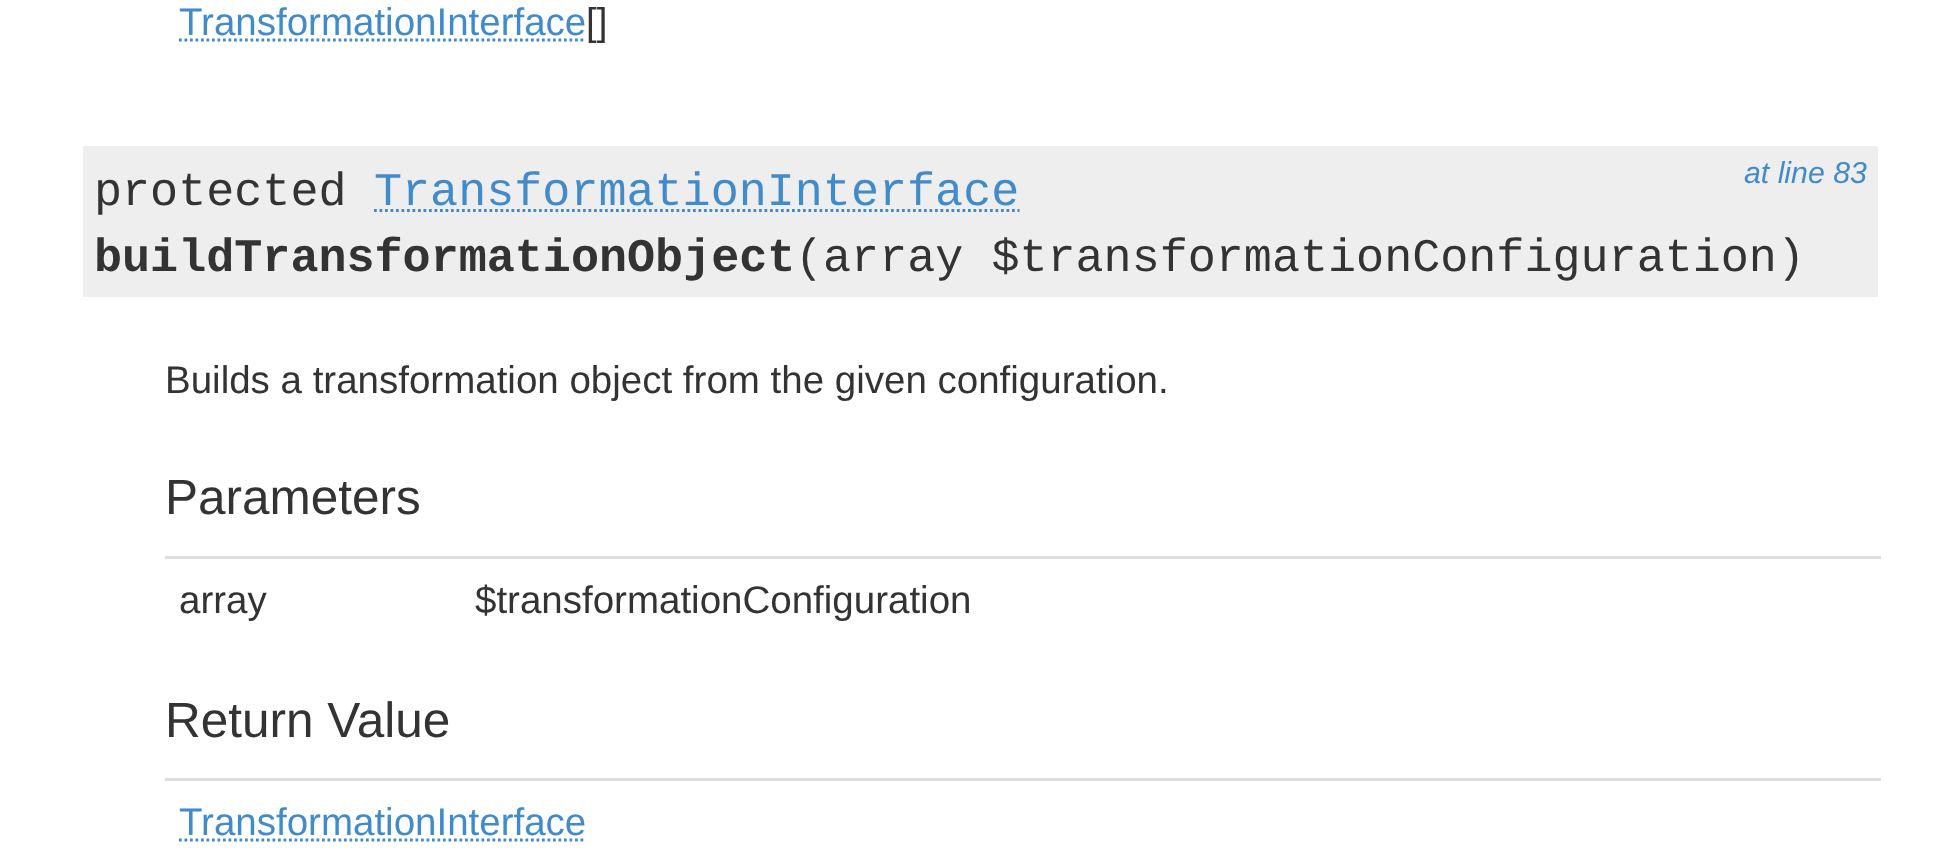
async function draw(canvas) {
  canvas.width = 1960;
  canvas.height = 858;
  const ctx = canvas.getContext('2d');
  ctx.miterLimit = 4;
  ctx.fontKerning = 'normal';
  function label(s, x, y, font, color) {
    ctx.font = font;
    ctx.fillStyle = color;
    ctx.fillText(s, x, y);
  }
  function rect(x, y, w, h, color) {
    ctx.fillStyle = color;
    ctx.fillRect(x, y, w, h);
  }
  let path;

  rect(0, 0, 1960, 858, '#fff');
  label('TransformationInterface', 179, 35, '38.5px Liberation Sans', '#428bca');
  path = new Path2D('M179 40H586');
  ctx.strokeStyle = '#428bca';
  ctx.lineWidth = 2.8;
  ctx.setLineDash([2.75, 2.75]);
  ctx.stroke(path);
  label('[]', 586, 35, '38.5px Liberation Sans', '#333');
  rect(83, 146, 1795, 151, '#eee');
  label('protected', 94, 205, '46.75px Liberation Mono', '#333');
  label('TransformationInterface', 374, 205, '46.75px Liberation Mono', '#428bca');
  path = new Path2D('M374 210.5H1019.5');
  ctx.stroke(path);
  label('at line 83', 1744, 183, 'italic 30.25px Liberation Sans', '#428bca');
  label('buildTransformationObject', 94, 271, 'bold 46.75px Liberation Mono', '#333');
  label('(array $transformationConfiguration)', 795, 271, '46.75px Liberation Mono', '#333');
  label('Builds a transformation object from the given configuration.', 165, 393, '38.5px Liberation Sans', '#333');
  label('Parameters', 165, 514, '49.5px Liberation Sans', '#333');
  rect(165, 556, 1716, 3, '#ddd');
  label('array', 179, 613, '38.5px Liberation Sans', '#333');
  label('$transformationConfiguration', 475, 613, '38.5px Liberation Sans', '#333');
  label('Return Value', 165, 737, '49.5px Liberation Sans', '#333');
  rect(165, 778, 1716, 3, '#ddd');
  label('TransformationInterface', 179, 835, '38.5px Liberation Sans', '#428bca');
  path = new Path2D('M179 840H586');
  ctx.stroke(path);
}

draw(document.querySelector('canvas'));
